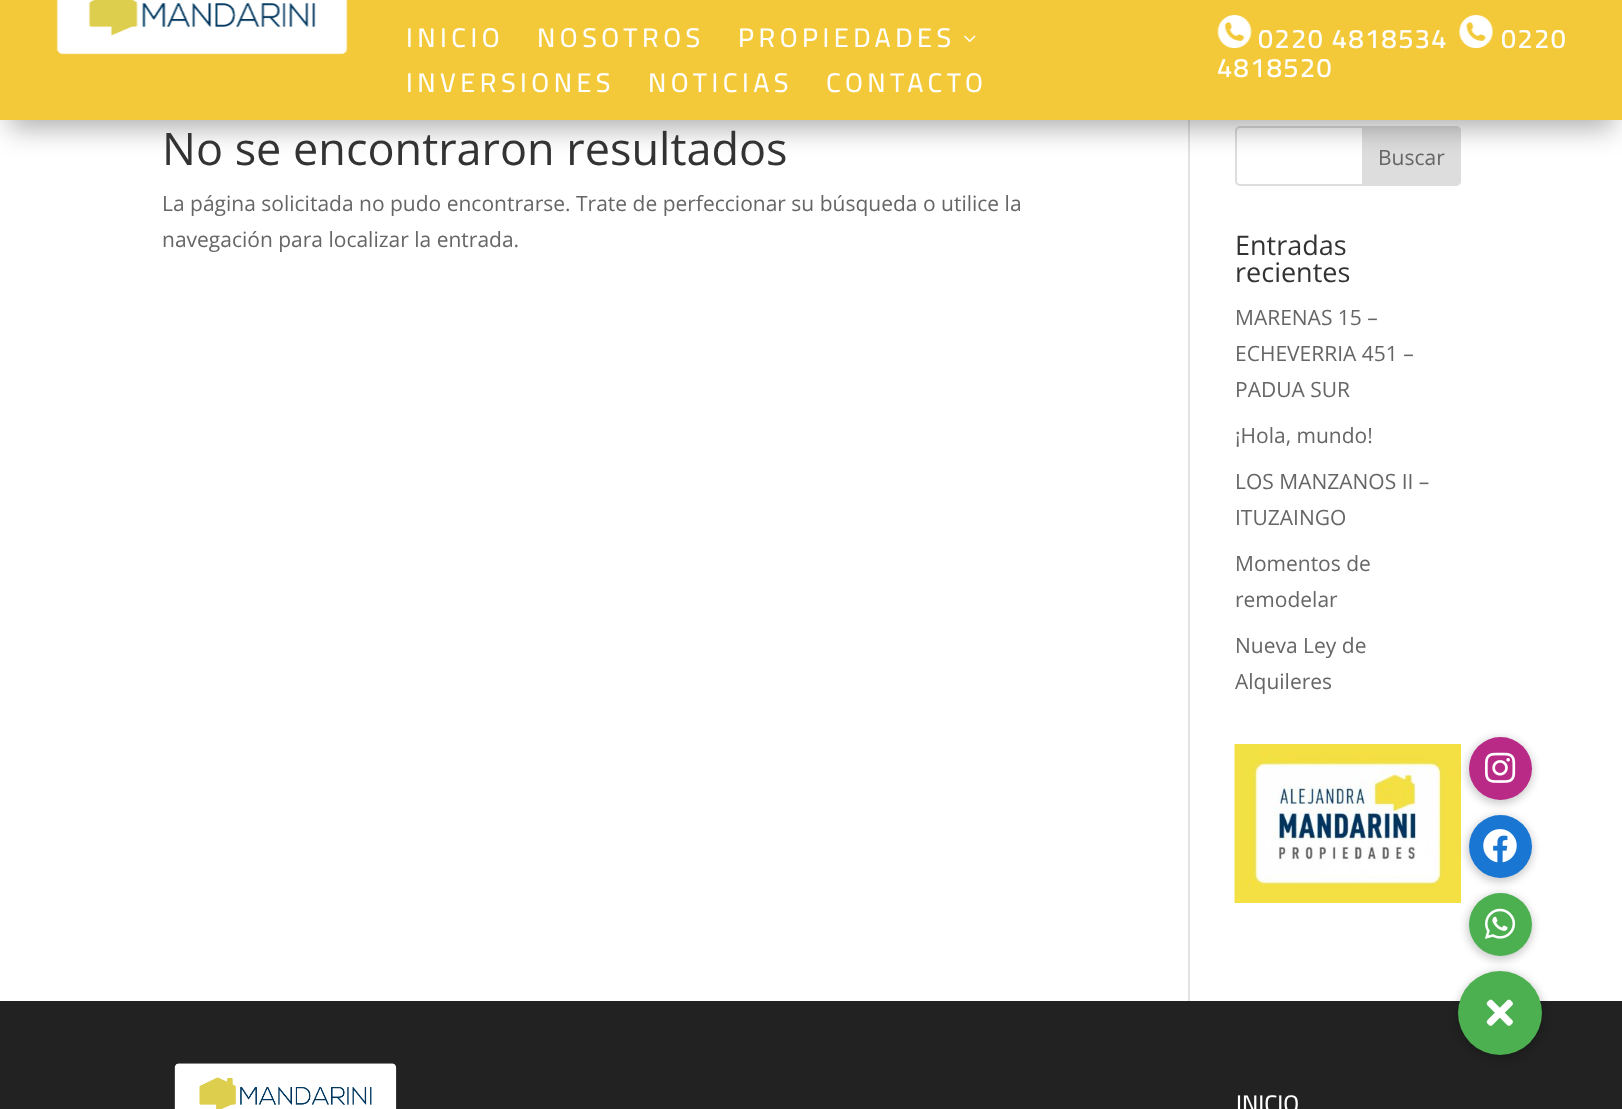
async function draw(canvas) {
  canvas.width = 1622;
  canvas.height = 1109;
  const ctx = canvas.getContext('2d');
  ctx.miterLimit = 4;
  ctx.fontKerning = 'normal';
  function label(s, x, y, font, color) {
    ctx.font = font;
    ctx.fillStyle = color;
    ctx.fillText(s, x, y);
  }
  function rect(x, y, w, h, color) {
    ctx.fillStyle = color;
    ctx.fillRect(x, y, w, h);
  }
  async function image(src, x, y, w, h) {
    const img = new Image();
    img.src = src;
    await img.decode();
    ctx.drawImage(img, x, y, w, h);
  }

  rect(0, 0, 1622, 1109, '#fff');
  rect(1188, 120, 2, 881, '#e2e2e2');
  ctx.beginPath();
  ctx.roundRect(1236, 127, 224, 58, 4);
  ctx.strokeStyle = '#ddd';
  ctx.lineWidth = 2;
  ctx.stroke();
  ctx.fillStyle = '#ddd';
  ctx.beginPath();
  ctx.roundRect(1363, 127, 97, 58, [0, 4, 4, 0]);
  ctx.fill();
  ctx.stroke();
  ctx.fillStyle = '#0000004d';
  ctx.filter = 'blur(13.5px)';
  ctx.beginPath();
  ctx.rect(9, 27, 1605, 102);
  ctx.fill();
  ctx.filter = 'none';
  rect(0, 0, 1622, 120, '#f3c93a');
  await image('assets/img1.png', 56, 0, 292, 55);
  ctx.letterSpacing = '4.5px';
  label('INICIO', 406, 47, '500 27px Cairo', '#fff');
  label('NOSOTROS', 537, 47, '500 27px Cairo', '#fff');
  label('PROPIEDADES', 738, 47, '500 27px Cairo', '#fff');
  await image('assets/img2.png', 964, 35, 12, 7);
  label('INVERSIONES', 406, 92, '500 27px Cairo', '#fff');
  label('NOTICIAS', 648, 92, '500 27px Cairo', '#fff');
  label('CONTACTO', 826, 92, '500 27px Cairo', '#fff');
  await image('assets/img3.png', 1217, 15, 35, 33);
  ctx.letterSpacing = '1.5px';
  label('0220 4818534', 1258, 48, '600 27px Cairo', '#fff');
  await image('assets/img4.png', 1459, 15, 34, 33);
  label('0220', 1501, 48, '600 27px Cairo', '#fff');
  label('4818520', 1217, 77, '600 27px Cairo', '#fff');
  ctx.letterSpacing = '0px';
  label('No se encontraron resultados', 162, 165, '45px Open Sans', '#333');
  label('La página solicitada no pudo encontrarse. Trate de perfeccionar su búsqueda o utilice la', 162, 211, '21px Open Sans', '#666');
  label('navegación para localizar la entrada.', 162, 247, '21px Open Sans', '#666');
  label('Buscar', 1378, 165, '21px Open Sans', '#666');
  label('Entradas', 1235, 255, '27px Open Sans', '#333');
  label('recientes', 1235, 282, '27px Open Sans', '#333');
  label('MARENAS 15 –', 1235, 325, '21px Open Sans', '#666');
  label('ECHEVERRIA 451 –', 1235, 361, '21px Open Sans', '#666');
  label('PADUA SUR', 1235, 397, '21px Open Sans', '#666');
  label('¡Hola, mundo!', 1235, 443, '21px Open Sans', '#666');
  label('LOS MANZANOS II –', 1235, 489, '21px Open Sans', '#666');
  label('ITUZAINGO', 1235, 525, '21px Open Sans', '#666');
  label('Momentos de', 1235, 571, '21px Open Sans', '#666');
  label('remodelar', 1235, 607, '21px Open Sans', '#666');
  label('Nueva Ley de', 1235, 653, '21px Open Sans', '#666');
  label('Alquileres', 1235, 689, '21px Open Sans', '#666');
  await image('assets/img5.png', 1234, 744, 227, 159);
  rect(0, 1001, 1622, 108, '#222');
  await image('assets/img6.png', 174, 1063, 223, 46);
  label('INICIO', 1236, 1112, '500 24px Cairo', '#fff');
  ctx.fillStyle = '#00000033';
  ctx.filter = 'blur(4.5px)';
  ctx.beginPath();
  ctx.roundRect(1467, 894, 66, 66, 33);
  ctx.fill();
  ctx.filter = 'none';
  ctx.fillStyle = '#4caf50';
  ctx.beginPath();
  ctx.arc(1500.5, 924.5, 31.5, 0, 2 * Math.PI);
  ctx.fill();
  ctx.fillStyle = '#00000033';
  ctx.filter = 'blur(4.5px)';
  ctx.beginPath();
  ctx.roundRect(1467, 816, 66, 66, 33);
  ctx.fill();
  ctx.filter = 'none';
  ctx.fillStyle = '#1976d2';
  ctx.beginPath();
  ctx.arc(1500.5, 846.5, 31.5, 0, 2 * Math.PI);
  ctx.fill();
  ctx.fillStyle = '#00000033';
  ctx.filter = 'blur(4.5px)';
  ctx.beginPath();
  ctx.roundRect(1467, 738, 66, 66, 33);
  ctx.fill();
  ctx.filter = 'none';
  ctx.fillStyle = '#b82a86';
  ctx.beginPath();
  ctx.arc(1500.5, 768.5, 31.5, 0, 2 * Math.PI);
  ctx.fill();
  await image('assets/img7.png', 1485, 752, 31, 31);
  await image('assets/img8.png', 1483, 829, 34, 34);
  await image('assets/img9.png', 1485, 908, 31, 31);
  ctx.fillStyle = '#00000033';
  ctx.filter = 'blur(4.5px)';
  ctx.beginPath();
  ctx.roundRect(1457, 972, 87, 87, 43.5);
  ctx.fill();
  ctx.filter = 'none';
  ctx.fillStyle = '#4caf50';
  ctx.beginPath();
  ctx.arc(1500, 1013, 42, 0, 2 * Math.PI);
  ctx.fill();
  await image('assets/img10.png', 1486, 999, 27, 27);
}

draw(document.querySelector('canvas'));
